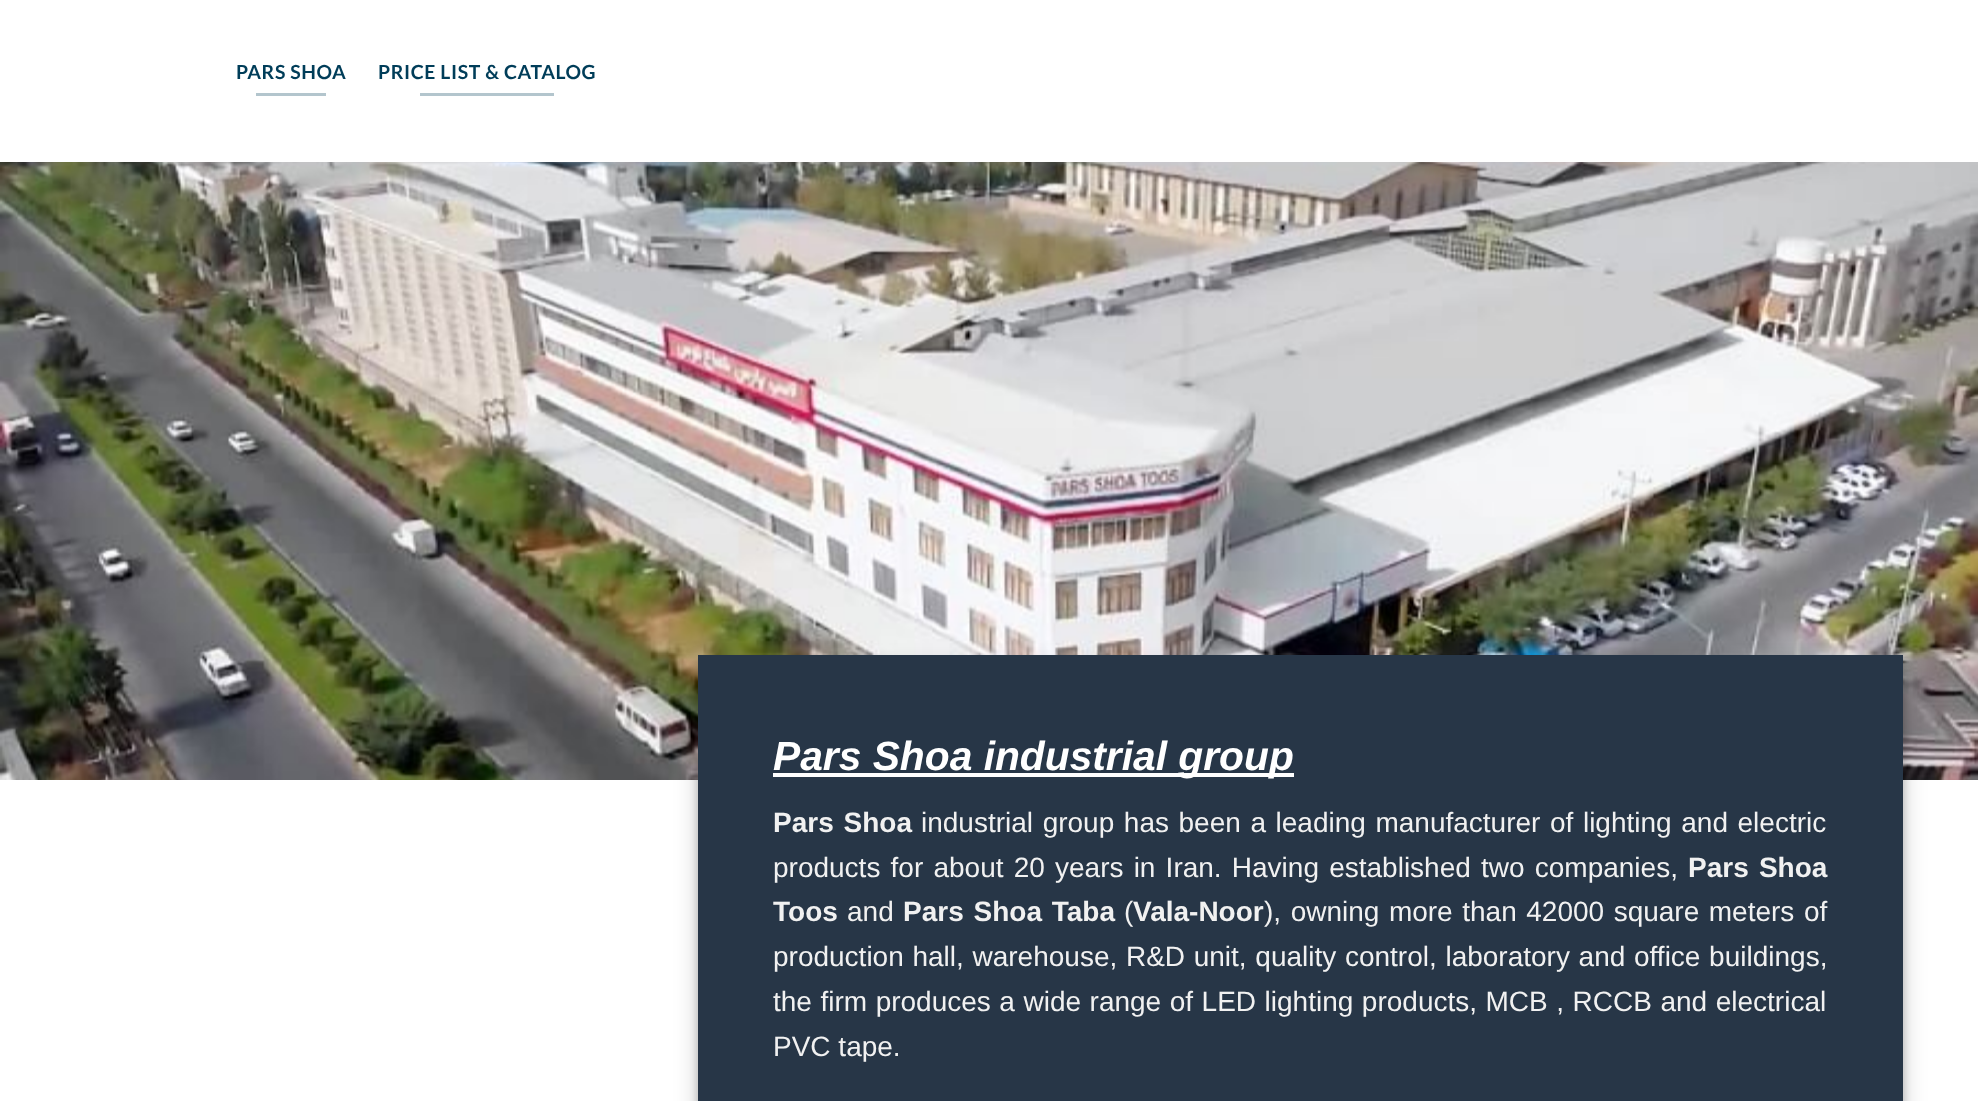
async function draw(canvas) {
  canvas.width = 1978;
  canvas.height = 1101;
  const ctx = canvas.getContext('2d');
  ctx.miterLimit = 4;
  ctx.fontKerning = 'normal';
  function label(s, x, y, font, color) {
    ctx.font = font;
    ctx.fillStyle = color;
    ctx.fillText(s, x, y);
  }
  function rect(x, y, w, h, color) {
    ctx.fillStyle = color;
    ctx.fillRect(x, y, w, h);
  }
  async function image(src, x, y, w, h) {
    const img = new Image();
    img.src = src;
    await img.decode();
    ctx.drawImage(img, x, y, w, h);
  }

  rect(0, 0, 1978, 1101, '#fff');
  ctx.letterSpacing = '0.6px';
  label('PARS SHOA', 236, 79, 'bold 19.4px Lato', '#003d59');
  rect(256, 93, 70, 3, '#b3c5cd');
  label('PRICE LIST & CATALOG', 378, 79, 'bold 19.4px Lato', '#003d59');
  rect(420, 93, 134, 3, '#b3c5cd');
  await image('assets/img1.png', 0, 162, 1978, 618);
  ctx.fillStyle = '#00000038';
  ctx.filter = 'blur(4px)';
  ctx.beginPath();
  ctx.rect(698, 663, 1205, 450);
  ctx.fill();
  ctx.filter = 'none';
  ctx.fillStyle = '#00000030';
  ctx.filter = 'blur(12.5px)';
  ctx.beginPath();
  ctx.rect(698, 668, 1205, 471);
  ctx.fill();
  ctx.filter = 'none';
  rect(698, 655, 1205, 446, '#273647');
  rect(773, 773, 521, 4, '#fff');
  ctx.letterSpacing = '0px';
  label('Pars Shoa industrial group', 773, 770, 'italic bold 40.75px Liberation Sans', '#fff');
  ctx.wordSpacing = '2px';
  label('Pars Shoa', 773, 832, 'bold 28px Liberation Sans', '#f1f1f1');
  ctx.wordSpacing = '1.8px';
  label('industrial group has been a leading manufacturer of lighting and electric', 921, 832, '28px Liberation Sans', '#f1f1f1');
  ctx.wordSpacing = '2.4px';
  label('products for about 20 years in Iran. Having established two companies,', 773, 877, '28px Liberation Sans', '#f1f1f1');
  label('Pars Shoa', 1688, 877, 'bold 28px Liberation Sans', '#f1f1f1');
  ctx.wordSpacing = '0px';
  label('Toos', 773, 921, 'bold 28px Liberation Sans', '#f1f1f1');
  label('and', 847, 921, '28px Liberation Sans', '#f1f1f1');
  ctx.wordSpacing = '2px';
  label('Pars Shoa Taba', 903, 921, 'bold 28px Liberation Sans', '#f1f1f1');
  ctx.wordSpacing = '0px';
  label('(', 1124, 921, '28px Liberation Sans', '#f1f1f1');
  label('Vala-Noor', 1133, 921, 'bold 28px Liberation Sans', '#f1f1f1');
  ctx.wordSpacing = '1.75px';
  label('), owning more than 42000 square meters of', 1264, 921, '28px Liberation Sans', '#f1f1f1');
  ctx.wordSpacing = '0.9px';
  label('production hall, warehouse, R&D unit, quality control, laboratory and office buildings,', 773, 966, '28px Liberation Sans', '#f1f1f1');
  ctx.wordSpacing = '0.75px';
  label('the firm produces a wide range of LED lighting products, MCB , RCCB and electrical', 773, 1011, '28px Liberation Sans', '#f1f1f1');
  ctx.wordSpacing = '0px';
  label('PVC tape.', 773, 1056, '28px Liberation Sans', '#f1f1f1');
}

draw(document.querySelector('canvas'));
